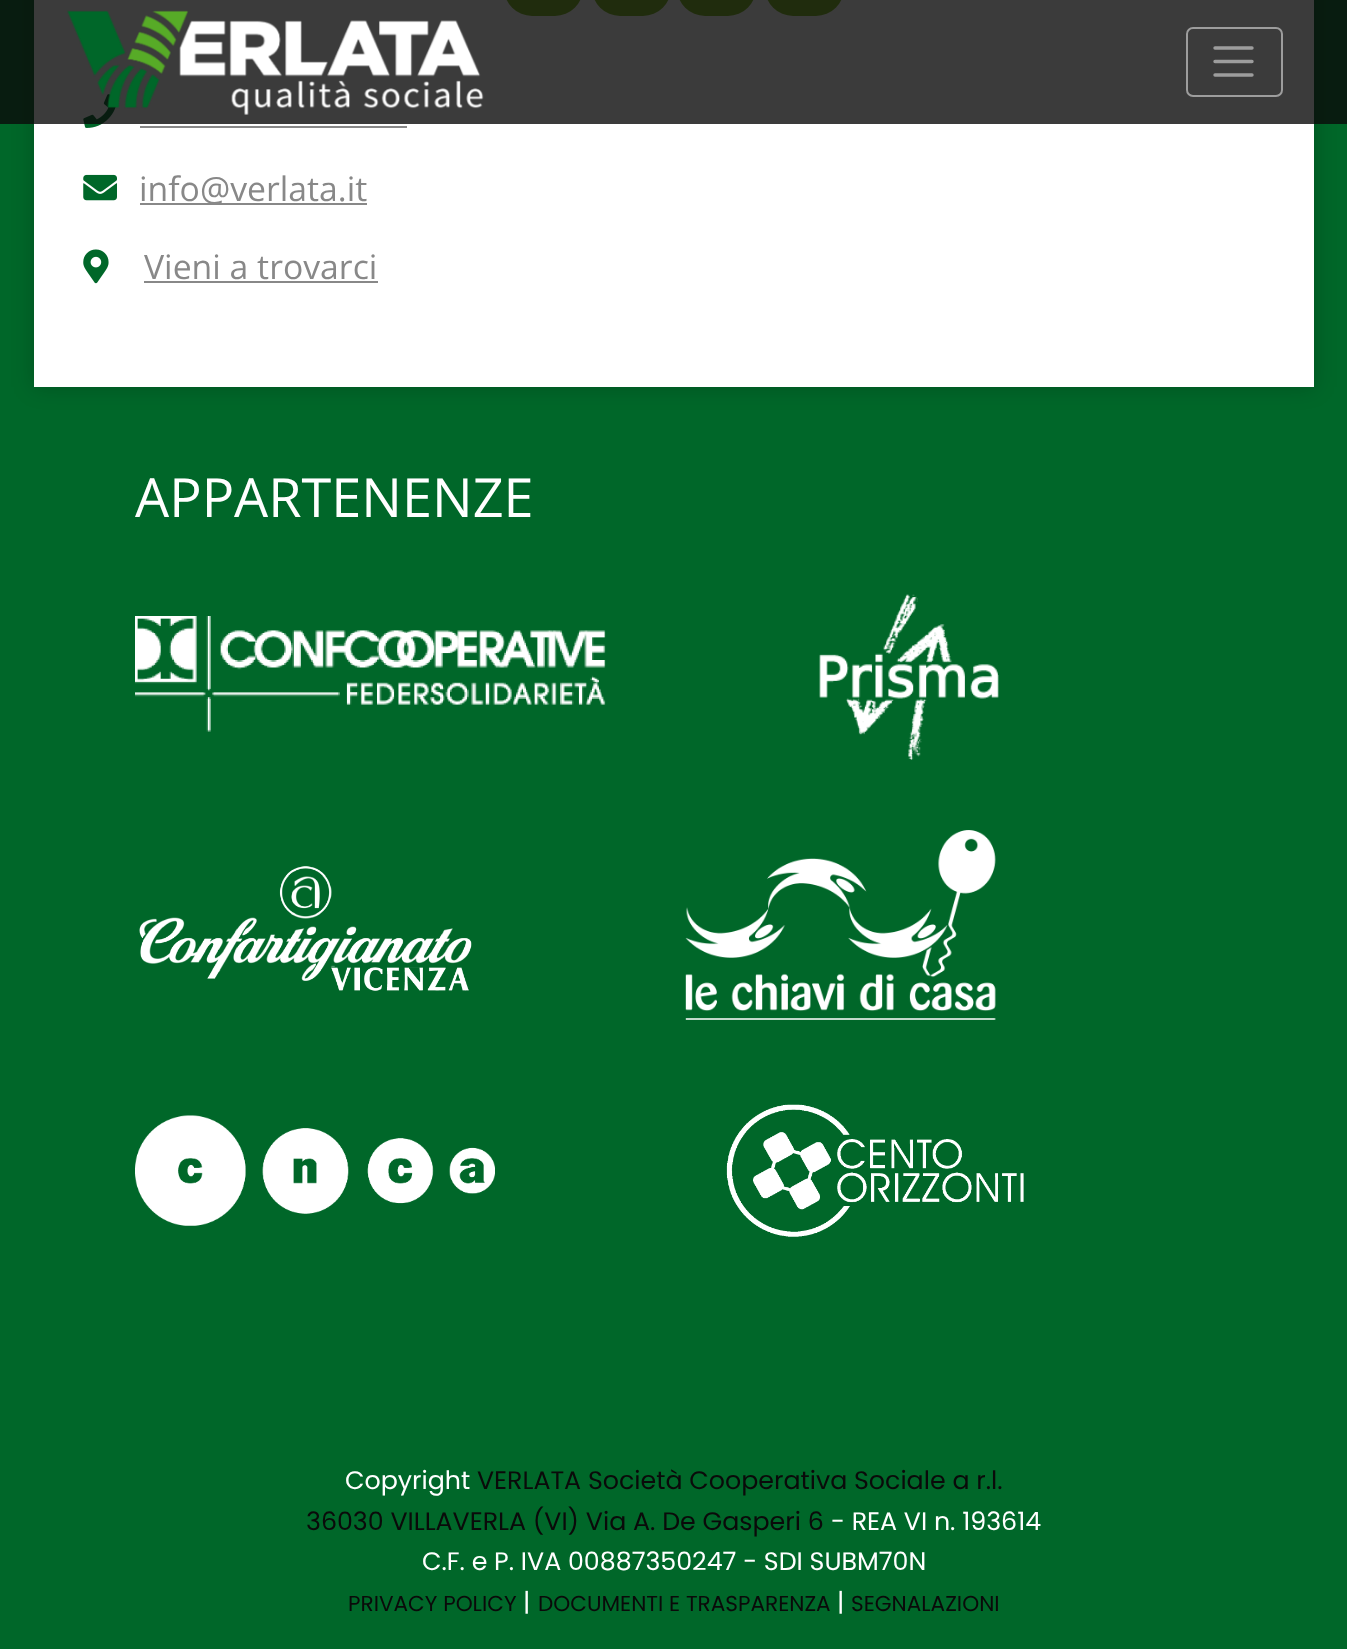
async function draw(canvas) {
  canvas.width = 1347;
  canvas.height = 1649;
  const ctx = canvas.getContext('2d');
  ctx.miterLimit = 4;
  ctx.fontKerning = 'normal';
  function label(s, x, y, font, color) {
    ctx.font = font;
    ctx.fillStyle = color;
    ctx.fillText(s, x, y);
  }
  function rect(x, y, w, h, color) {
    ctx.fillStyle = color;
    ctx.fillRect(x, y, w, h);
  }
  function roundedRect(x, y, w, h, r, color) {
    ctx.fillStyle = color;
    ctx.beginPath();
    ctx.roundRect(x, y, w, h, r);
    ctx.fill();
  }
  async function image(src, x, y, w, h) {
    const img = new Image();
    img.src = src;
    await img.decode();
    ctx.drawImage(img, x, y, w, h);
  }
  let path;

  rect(0, 0, 1347, 1649, '#006729');
  ctx.fillStyle = '#00000033';
  ctx.filter = 'blur(11px)';
  ctx.beginPath();
  ctx.rect(34, -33, 1280, 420);
  ctx.fill();
  ctx.filter = 'none';
  rect(34, 0, 1280, 387, '#fff');
  roundedRect(504, -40, 79, 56, 39.5, '#7ab51d');
  roundedRect(592, -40, 79, 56, 39.5, '#7ab51d');
  roundedRect(677, -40, 79, 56, 39.5, '#7ab51d');
  roundedRect(765, -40, 79, 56, 39.5, '#7ab51d');
  await image('assets/img2.png', 83, 94, 33, 34);
  rect(0, 0, 1347, 124, '#0a0a0acc');
  await image('assets/img1.png', 67, 10, 417, 105);
  ctx.beginPath();
  ctx.roundRect(1187, 28, 95, 68, 6);
  ctx.strokeStyle = '#9d9d9d';
  ctx.lineWidth = 2;
  ctx.stroke();
  path = new Path2D('M1215 48H1252M1215 61.5H1252M1215 75H1252');
  ctx.lineWidth = 3.4;
  ctx.lineCap = 'round';
  ctx.stroke(path);
  rect(140, 126, 267, 2, '#888');
  await image('assets/img3.png', 83, 174, 34, 27);
  rect(140, 203, 227, 2, '#888');
  label('info@verlata.it', 139, 201, '33.75px Open Sans', '#888');
  await image('assets/img4.png', 83, 249, 26, 35);
  label('Vieni a trovarci', 144, 279, '33.75px Open Sans', '#888');
  rect(144, 281, 234, 2, '#888');
  label('APPARTENENZE', 135, 517, '54px Open Sans', '#fff');
  await image('assets/img5.png', 135, 616, 471, 116);
  await image('assets/img6.png', 819, 594, 180, 166);
  await image('assets/img7.png', 139, 866, 333, 125);
  await image('assets/img8.png', 685, 830, 311, 190);
  await image('assets/img9.png', 135, 1115, 360, 111);
  await image('assets/img10.png', 726, 1104, 298, 133);
  label('Copyright', 345, 1489, '25.3px Poppins', '#fff');
  label('VERLATA Società Cooperativa Sociale a r.l.', 477, 1489, '25.3px Poppins', '#0a0a0a');
  label('36030 VILLAVERLA (VI) Via A. De Gasperi 6', 306, 1530, '25.3px Poppins', '#0a0a0a');
  label('- REA VI n. 193614', 831, 1530, '25.3px Poppins', '#fff');
  label('C.F. e P. IVA 00887350247 - SDI SUBM70N', 422, 1570, '25.3px Poppins', '#fff');
  label('PRIVACY POLICY', 348, 1611, '21.6px Poppins', '#0a0a0a');
  label('|', 523, 1611, '25.3px Poppins', '#fff');
  label('DOCUMENTI E TRASPARENZA', 538, 1611, '21.6px Poppins', '#0a0a0a');
  label('|', 837, 1611, '25.3px Poppins', '#fff');
  label('SEGNALAZIONI', 851, 1611, '21.6px Poppins', '#0a0a0a');
}

draw(document.querySelector('canvas'));
